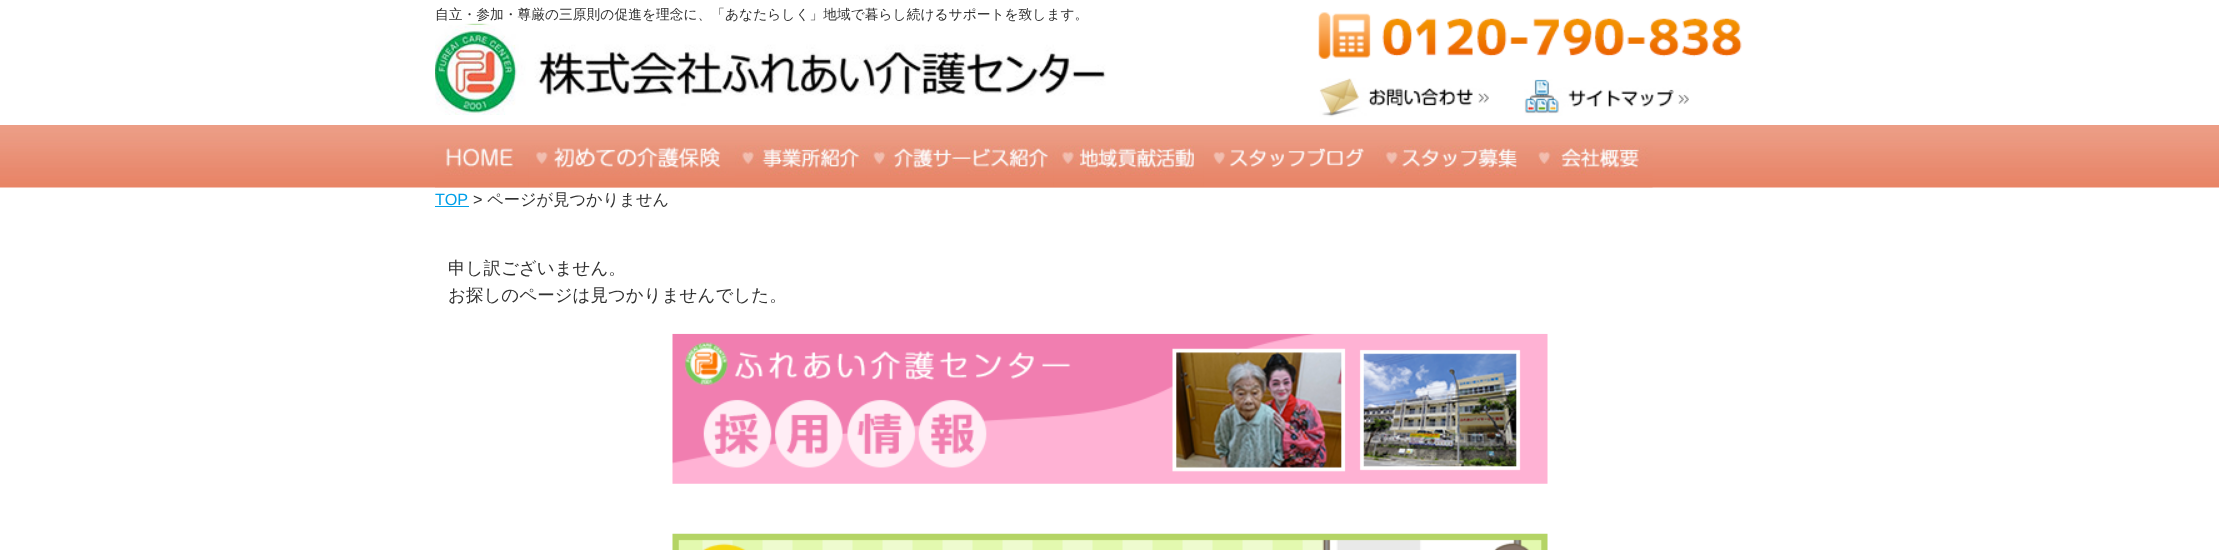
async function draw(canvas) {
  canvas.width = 2219;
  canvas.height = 550;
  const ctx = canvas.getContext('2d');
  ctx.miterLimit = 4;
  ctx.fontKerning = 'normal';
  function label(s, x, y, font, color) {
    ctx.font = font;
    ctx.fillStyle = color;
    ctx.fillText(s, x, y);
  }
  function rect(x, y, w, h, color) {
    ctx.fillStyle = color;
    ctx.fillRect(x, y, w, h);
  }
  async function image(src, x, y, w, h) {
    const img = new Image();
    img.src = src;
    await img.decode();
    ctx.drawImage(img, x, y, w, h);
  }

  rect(0, 0, 2219, 550, '#fff');
  await image('assets/img1.png', 436, 12, 1306, 94);
  label('自立・参加・尊厳の三原則の促進を理念に、「あなたらしく」地域で暮らし続けるサポートを致します。', 435, 19, '500 13.75px WenQuanYi Zen Hei', '#313131');
  await image('assets/img2.png', 435, 25, 671, 90);
  await image('assets/img3.png', 1319, 78, 170, 39);
  await image('assets/img4.png', 1524, 79, 165, 37);
  await image('assets/img5.png', 0, 125, 2219, 63);
  await image('assets/img6.png', 435, 145, 94, 43);
  await image('assets/img7.png', 528, 145, 207, 43);
  await image('assets/img8.png', 735, 145, 132, 43);
  await image('assets/img9.png', 866, 145, 188, 43);
  await image('assets/img10.png', 1053, 145, 151, 43);
  await image('assets/img11.png', 1203, 148, 175, 40);
  await image('assets/img12.png', 1377, 145, 151, 43);
  await image('assets/img13.png', 1527, 145, 126, 43);
  label('TOP', 435, 205, '16.25px Liberation Sans', '#00a0e9');
  rect(435, 206, 34, 1, '#00a0e9');
  label('>', 473, 205, '16.25px Liberation Sans', '#313131');
  label('ページが見つかりません', 487, 205, '500 16.25px WenQuanYi Zen Hei', '#313131');
  label('申し訳ございません。', 448, 274, '500 17.5px WenQuanYi Zen Hei', '#313131');
  label('お探しのページは見つかりませんでした。', 448, 301, '500 17.5px WenQuanYi Zen Hei', '#313131');
  await image('assets/img14.png', 672, 333, 876, 151);
  await image('assets/img15.png', 672, 533, 876, 17);
}

draw(document.querySelector('canvas'));
